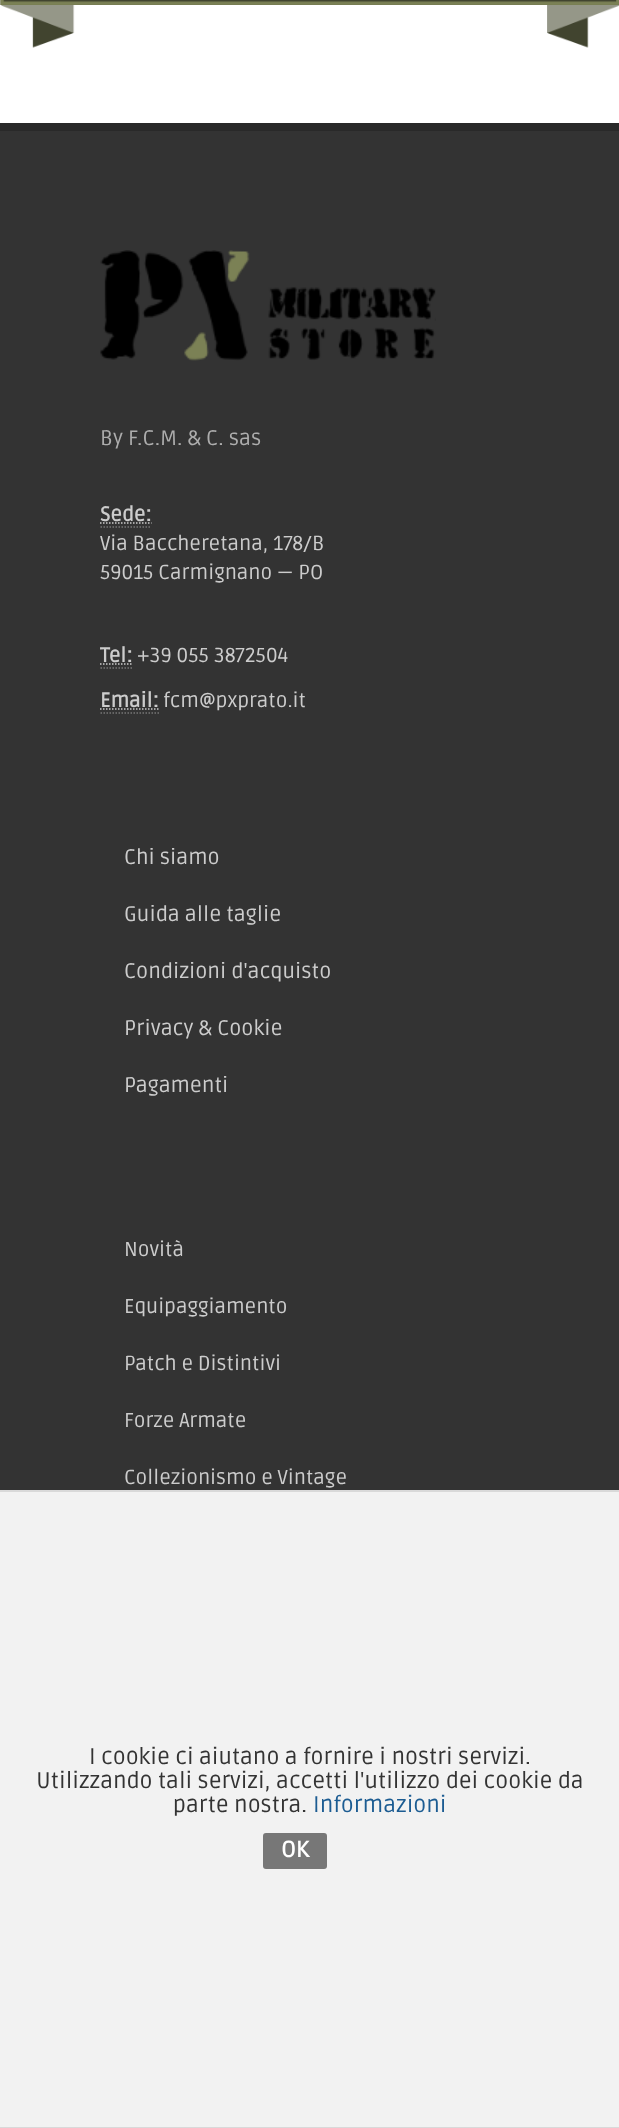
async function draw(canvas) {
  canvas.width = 619;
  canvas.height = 2128;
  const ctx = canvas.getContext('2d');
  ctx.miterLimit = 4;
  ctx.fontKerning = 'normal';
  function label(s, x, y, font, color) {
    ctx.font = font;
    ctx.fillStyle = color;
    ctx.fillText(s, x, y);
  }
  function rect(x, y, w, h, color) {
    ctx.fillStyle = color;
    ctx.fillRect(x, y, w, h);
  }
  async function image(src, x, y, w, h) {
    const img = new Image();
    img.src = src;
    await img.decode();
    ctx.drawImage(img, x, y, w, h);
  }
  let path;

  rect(0, 0, 619, 2128, '#fff');
  await image('assets/img1.png', 0, 0, 619, 48);
  rect(0, 131, 619, 1359, '#333');
  rect(0, 123, 619, 8, '#292929');
  await image('assets/img2.png', 100, 250, 336, 111);
  label('By F.C.M. & C. sas', 100, 445, '21px Ruda', '#adadad');
  label('Sede:', 100, 521, 'bold 20.25px Ruda', '#ccc');
  path = new Path2D('M100.5 527H151.5');
  ctx.strokeStyle = '#777';
  ctx.lineWidth = 1.5;
  ctx.setLineDash([1.5, 1.5]);
  ctx.stroke(path);
  path = new Path2D('M100 523H151.5');
  ctx.strokeStyle = '#ccc';
  ctx.stroke(path);
  label('Via Baccheretana, 178/B', 100, 550, '20.25px Ruda', '#ccc');
  label('59015 Carmignano — PO', 100, 579, '20.25px Ruda', '#ccc');
  label('Tel:', 100, 662, 'bold 20.25px Ruda', '#ccc');
  path = new Path2D('M100.5 668H132');
  ctx.strokeStyle = '#777';
  ctx.stroke(path);
  path = new Path2D('M100 664H132.5');
  ctx.strokeStyle = '#ccc';
  ctx.stroke(path);
  label('+39 055 3872504', 137, 662, '20.25px Ruda', '#ccc');
  label('Email:', 100, 707, 'bold 20.25px Ruda', '#ccc');
  path = new Path2D('M100.5 713H159');
  ctx.strokeStyle = '#777';
  ctx.stroke(path);
  path = new Path2D('M100 709H158.5');
  ctx.strokeStyle = '#ccc';
  ctx.stroke(path);
  label('fcm@pxprato.it', 163, 707, '20.25px Ruda', '#ccc');
  label('Chi siamo', 124, 864, '21px Ruda', '#ccc');
  label('Guida alle taglie', 124, 921, '21px Ruda', '#ccc');
  label('Condizioni d\'acquisto', 124, 978, '21px Ruda', '#ccc');
  label('Privacy & Cookie', 124, 1035, '21px Ruda', '#ccc');
  label('Pagamenti', 124, 1092, '21px Ruda', '#ccc');
  label('Novità', 124, 1256, '20.25px Ruda', '#ccc');
  label('Equipaggiamento', 124, 1313, '20.25px Ruda', '#ccc');
  label('Patch e Distintivi', 124, 1370, '20.25px Ruda', '#ccc');
  label('Forze Armate', 124, 1427, '20.25px Ruda', '#ccc');
  label('Collezionismo e Vintage', 124, 1484, '20.25px Ruda', '#ccc');
  rect(0, 1492, 619, 635, '#f2f2f2');
  rect(0, 1490, 619, 2, '#d9d9d9');
  rect(0, 2127, 619, 1, '#d9d9d9');
  label('I cookie ci aiutano a fornire i nostri servizi.', 89, 1764, '22.5px Ruda', '#333');
  label('Utilizzando tali servizi, accetti l\'utilizzo dei cookie da', 36, 1788, '22.5px Ruda', '#333');
  label('parte nostra.', 173, 1812, '22.5px Ruda', '#333');
  label('Informazioni', 313, 1812, '22.5px Ruda', '#1c5c92');
  ctx.fillStyle = '#777';
  ctx.beginPath();
  ctx.roundRect(264, 1834, 62, 34, 2);
  ctx.fill();
  ctx.strokeStyle = '#777';
  ctx.lineWidth = 2;
  ctx.setLineDash([]);
  ctx.stroke();
  label('OK', 281, 1857, 'bold 22.5px Ruda', '#fff');
}

draw(document.querySelector('canvas'));
